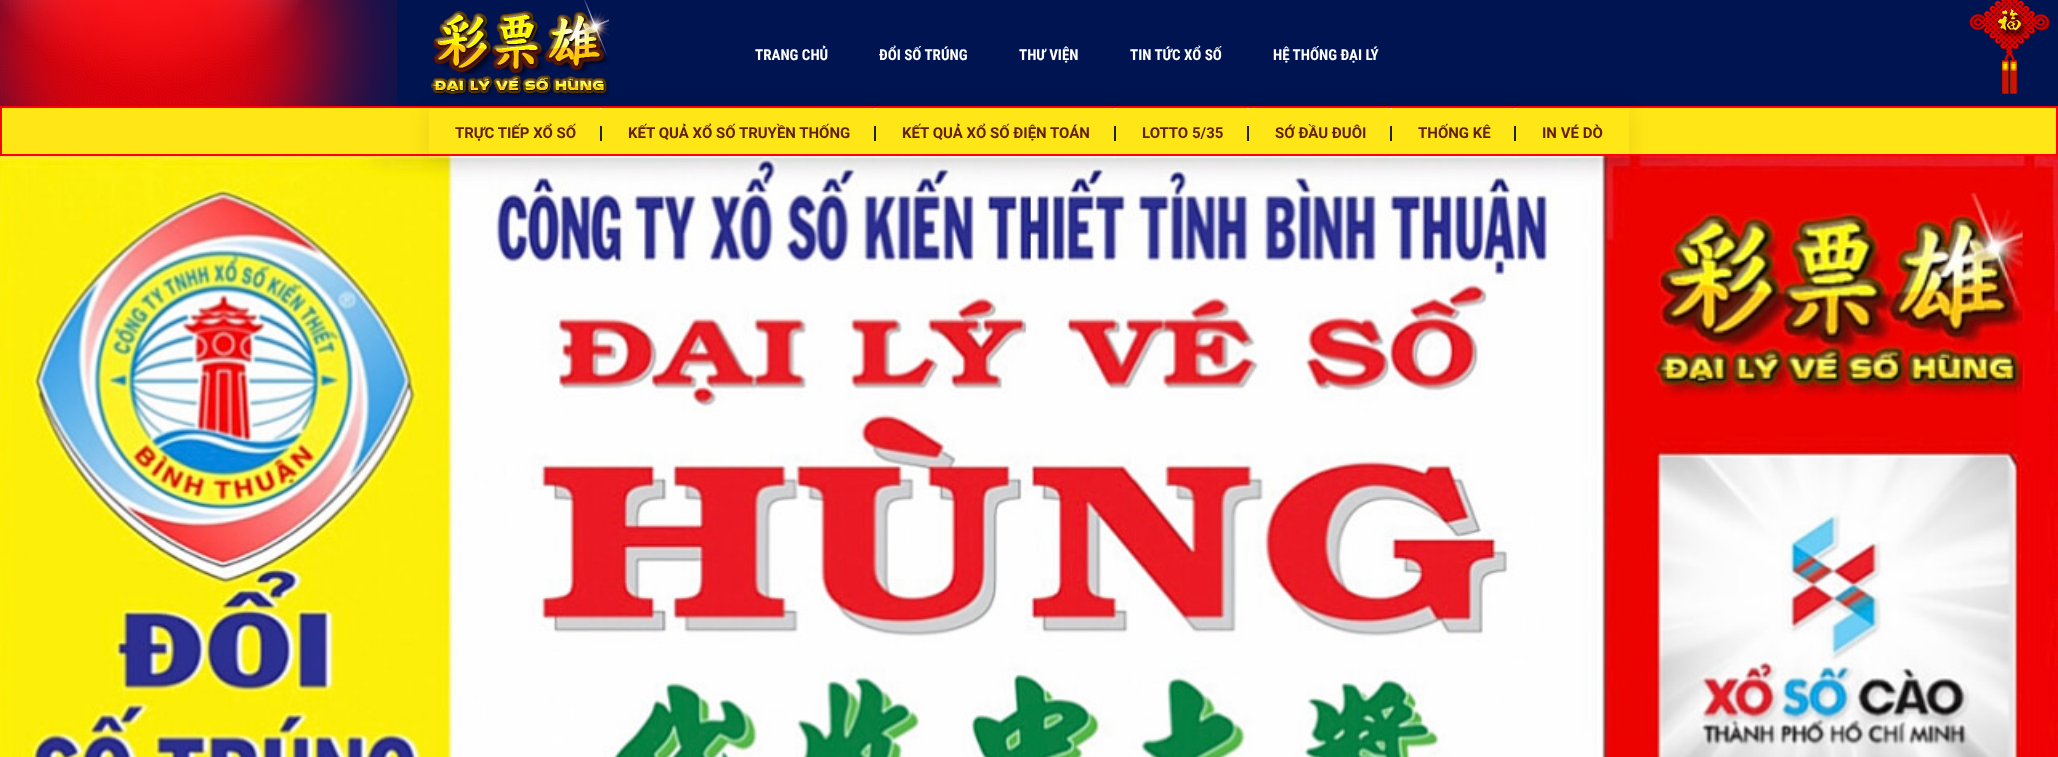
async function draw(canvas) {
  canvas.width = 2058;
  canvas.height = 757;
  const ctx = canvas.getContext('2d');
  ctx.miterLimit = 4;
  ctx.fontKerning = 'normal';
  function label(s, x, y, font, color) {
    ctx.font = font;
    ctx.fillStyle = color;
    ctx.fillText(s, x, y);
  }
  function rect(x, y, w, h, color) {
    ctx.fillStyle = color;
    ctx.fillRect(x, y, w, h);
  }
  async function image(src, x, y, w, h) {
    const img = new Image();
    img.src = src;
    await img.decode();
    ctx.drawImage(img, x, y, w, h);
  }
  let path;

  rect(0, 0, 2058, 757, '#001452');
  await image('assets/img1.png', 0, 0, 397, 106);
  await image('assets/img2.png', 430, 0, 179, 98);
  label('TRANG CHỦ', 755, 60, 'bold 15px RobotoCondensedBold', '#fff');
  label('ĐỔI SỐ TRÚNG', 879, 60, 'bold 15px RobotoCondensedBold', '#fff');
  label('THƯ VIỆN', 1019, 60, 'bold 15px RobotoCondensedBold', '#fff');
  label('TIN TỨC XỔ SỐ', 1130, 60, 'bold 15px RobotoCondensedBold', '#fff');
  label('HỆ THỐNG ĐẠI LÝ', 1273, 60, 'bold 15px RobotoCondensedBold', '#fff');
  await image('assets/img3.png', 1969, 0, 81, 94);
  ctx.fillStyle = '#ffe617';
  ctx.beginPath();
  ctx.rect(1, 107, 2056, 48);
  ctx.fill();
  ctx.strokeStyle = '#f00';
  ctx.lineWidth = 2;
  ctx.stroke();
  await image('assets/img10.png', 0, 156, 2058, 601);
  ctx.save();
  path = new Path2D('M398 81H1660V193H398ZM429 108H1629V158H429Z');
  ctx.clip(path, 'evenodd');
  ctx.fillStyle = '#0000001a';
  ctx.filter = 'blur(10px)';
  ctx.beginPath();
  ctx.rect(429, 112, 1200, 50);
  ctx.fill();
  ctx.filter = 'none';
  ctx.restore();
  await image('assets/img4.png', 600, 108, 2, 50);
  label('TRỰC TIẾP XỔ SỐ', 455, 138, 'bold 15px Roboto', '#641f00');
  await image('assets/img5.png', 874, 108, 2, 50);
  label('KẾT QUẢ XỔ SỐ TRUYỀN THỐNG', 628, 138, 'bold 15px Roboto', '#641f00');
  await image('assets/img6.png', 1114, 108, 2, 50);
  label('KẾT QUẢ XỔ SỐ ĐIỆN TOÁN', 902, 138, 'bold 15px Roboto', '#641f00');
  await image('assets/img7.png', 1247, 108, 2, 50);
  label('LOTTO 5/35', 1142, 138, 'bold 15px Roboto', '#641f00');
  await image('assets/img8.png', 1390, 108, 2, 50);
  label('SỚ ĐẦU ĐUÔI', 1275, 138, 'bold 15px Roboto', '#641f00');
  await image('assets/img9.png', 1514, 108, 2, 50);
  label('THỐNG KÊ', 1418, 138, 'bold 15px Roboto', '#641f00');
  label('IN VÉ DÒ', 1542, 138, 'bold 15px Roboto', '#641f00');
}

draw(document.querySelector('canvas'));
